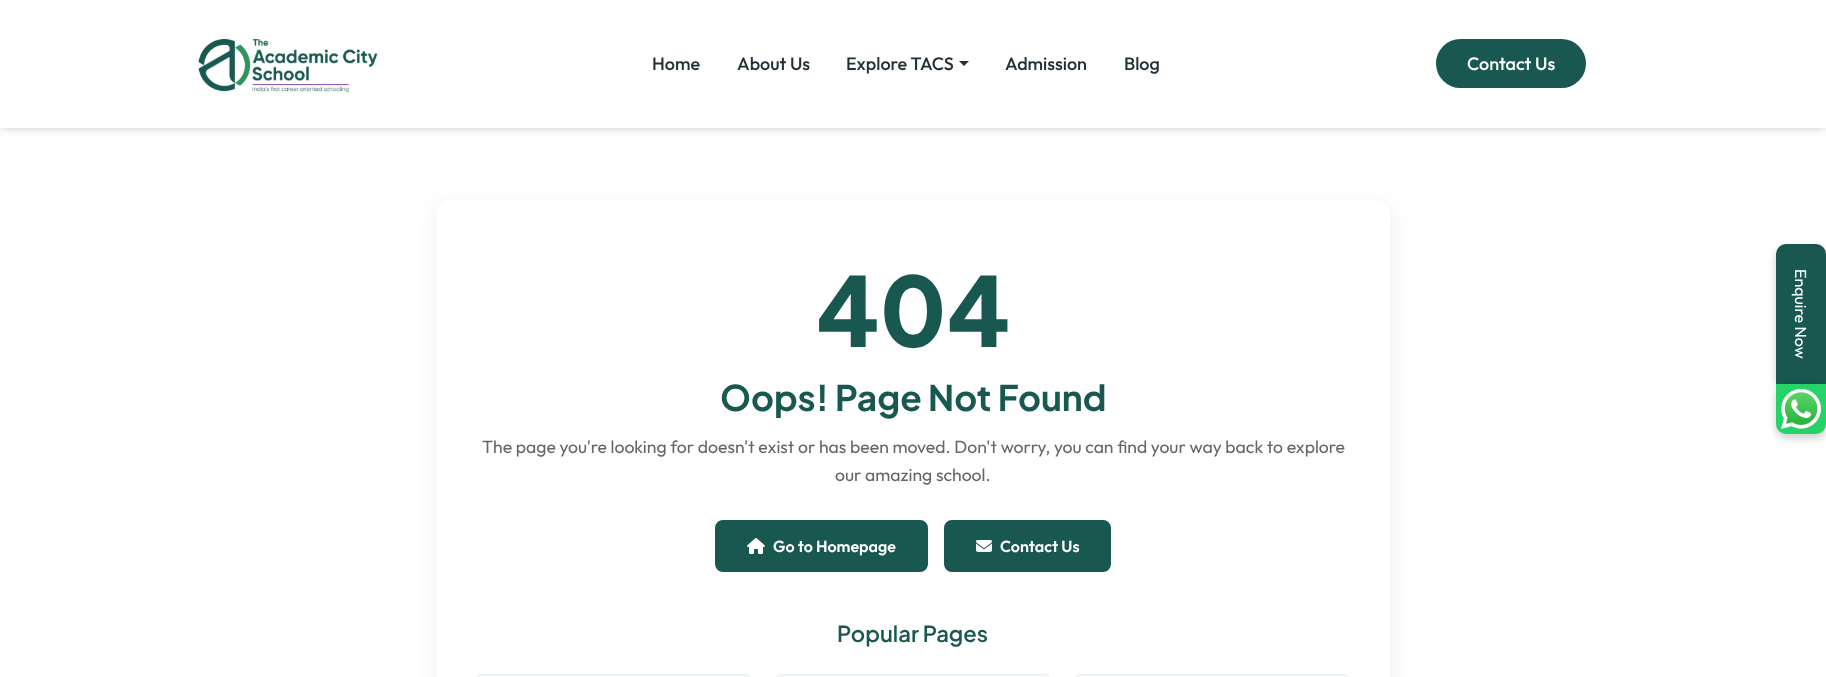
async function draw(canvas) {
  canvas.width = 1826;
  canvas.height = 677;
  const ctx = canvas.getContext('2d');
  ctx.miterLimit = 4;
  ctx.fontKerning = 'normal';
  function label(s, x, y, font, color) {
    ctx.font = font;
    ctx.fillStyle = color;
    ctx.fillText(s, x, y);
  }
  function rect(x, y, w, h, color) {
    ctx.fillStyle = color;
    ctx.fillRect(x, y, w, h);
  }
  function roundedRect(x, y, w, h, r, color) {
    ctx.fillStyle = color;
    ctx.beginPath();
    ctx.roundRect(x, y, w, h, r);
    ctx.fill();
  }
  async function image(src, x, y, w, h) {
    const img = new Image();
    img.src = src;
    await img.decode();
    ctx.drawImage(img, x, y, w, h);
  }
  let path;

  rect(0, 0, 1826, 677, '#fff');
  ctx.save();
  ctx.beginPath();
  ctx.rect(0, 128, 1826, 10);
  ctx.clip();
  ctx.fillStyle = '#cbcbcb';
  ctx.filter = 'blur(5px)';
  ctx.beginPath();
  ctx.rect(0, 0, 1826, 128);
  ctx.fill();
  ctx.filter = 'none';
  ctx.restore();
  await image('assets/img1.png', 198, 38, 180, 55);
  label('Home', 652, 70, '500 18px Outfit', '#243037');
  label('About Us', 737, 70, '500 18px Outfit', '#243037');
  label('Explore TACS', 846, 70, '500 18px Outfit', '#243037');
  path = new Path2D('M959 61H969L964 66Z');
  ctx.fill(path);
  label('Admission', 1005, 70, '500 18px Outfit', '#243037');
  label('Blog', 1124, 70, '500 18px Outfit', '#243037');
  roundedRect(1436, 39, 150, 49, 24.5, '#185850');
  label('Contact Us', 1467, 70, '500 18px Outfit', '#fff');
  ctx.fillStyle = '#00000014';
  ctx.filter = 'blur(10px)';
  ctx.beginPath();
  ctx.roundRect(436, 205, 954, 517, 15);
  ctx.fill();
  ctx.filter = 'none';
  roundedRect(436, 200, 954, 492, 15, '#fff');
  label('404', 816, 347, '800 96px Plus Jakarta Sans', '#185850');
  label('Oops! Page Not Found', 720, 411, 'bold 35.25px Plus Jakarta Sans', '#185850');
  label('The page you\'re looking for doesn\'t exist or has been moved. Don\'t worry, you can find your way back to explore', 482, 453, '17.6px Outfit', '#666');
  label('our amazing school.', 835, 481, '17.6px Outfit', '#666');
  ctx.fillStyle = '#185850';
  ctx.beginPath();
  ctx.roundRect(716, 521, 211, 50, 7);
  ctx.fill();
  ctx.strokeStyle = '#185850';
  ctx.lineWidth = 2;
  ctx.stroke();
  await image('assets/img2.png', 747, 538, 18, 16);
  label('Go to Homepage', 773, 552, '600 16px Outfit', '#fff');
  ctx.fillStyle = '#185850';
  ctx.beginPath();
  ctx.roundRect(945, 521, 165, 50, 7);
  ctx.fill();
  ctx.stroke();
  await image('assets/img3.png', 976, 540, 16, 12);
  label('Contact Us', 1000, 552, '600 16px Outfit', '#fff');
  label('Popular Pages', 837, 642, '600 22px Plus Jakarta Sans', '#185850');
  ctx.fillStyle = '#f8f9fa';
  ctx.beginPath();
  ctx.roundRect(476.5, 674.5, 274, 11, 7.5);
  ctx.fill();
  ctx.strokeStyle = '#e9ecef';
  ctx.lineWidth = 1;
  ctx.stroke();
  ctx.beginPath();
  ctx.roundRect(775.5, 674.5, 275, 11, 7.5);
  ctx.fill();
  ctx.stroke();
  ctx.beginPath();
  ctx.roundRect(1075.5, 674.5, 274, 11, 7.5);
  ctx.fill();
  ctx.stroke();
  ctx.fillStyle = '#00000033';
  ctx.filter = 'blur(4px)';
  ctx.beginPath();
  ctx.roundRect(1776, 248, 50, 140, 10);
  ctx.fill();
  ctx.filter = 'none';
  ctx.fillStyle = '#185850';
  ctx.beginPath();
  ctx.roundRect(1776, 244, 50, 140, [10, 10, 0, 0]);
  ctx.fill();
  ctx.font = '16px Outfit';
  ctx.fillStyle = '#fff';
  ctx.save();
  ctx.translate(1795, 269);
  ctx.rotate(90 * Math.PI / 180);
  ctx.fillText('Enquire Now', 0, 0);
  ctx.restore();
  ctx.fillStyle = '#00000033';
  ctx.filter = 'blur(4px)';
  ctx.beginPath();
  ctx.roundRect(1776, 388, 50, 50, 10);
  ctx.fill();
  ctx.filter = 'none';
  ctx.fillStyle = '#25d366';
  ctx.beginPath();
  ctx.roundRect(1776, 384, 50, 50, [0, 0, 10, 10]);
  ctx.fill();
  await image('assets/img4.png', 1781, 389, 40, 40);
}

draw(document.querySelector('canvas'));
